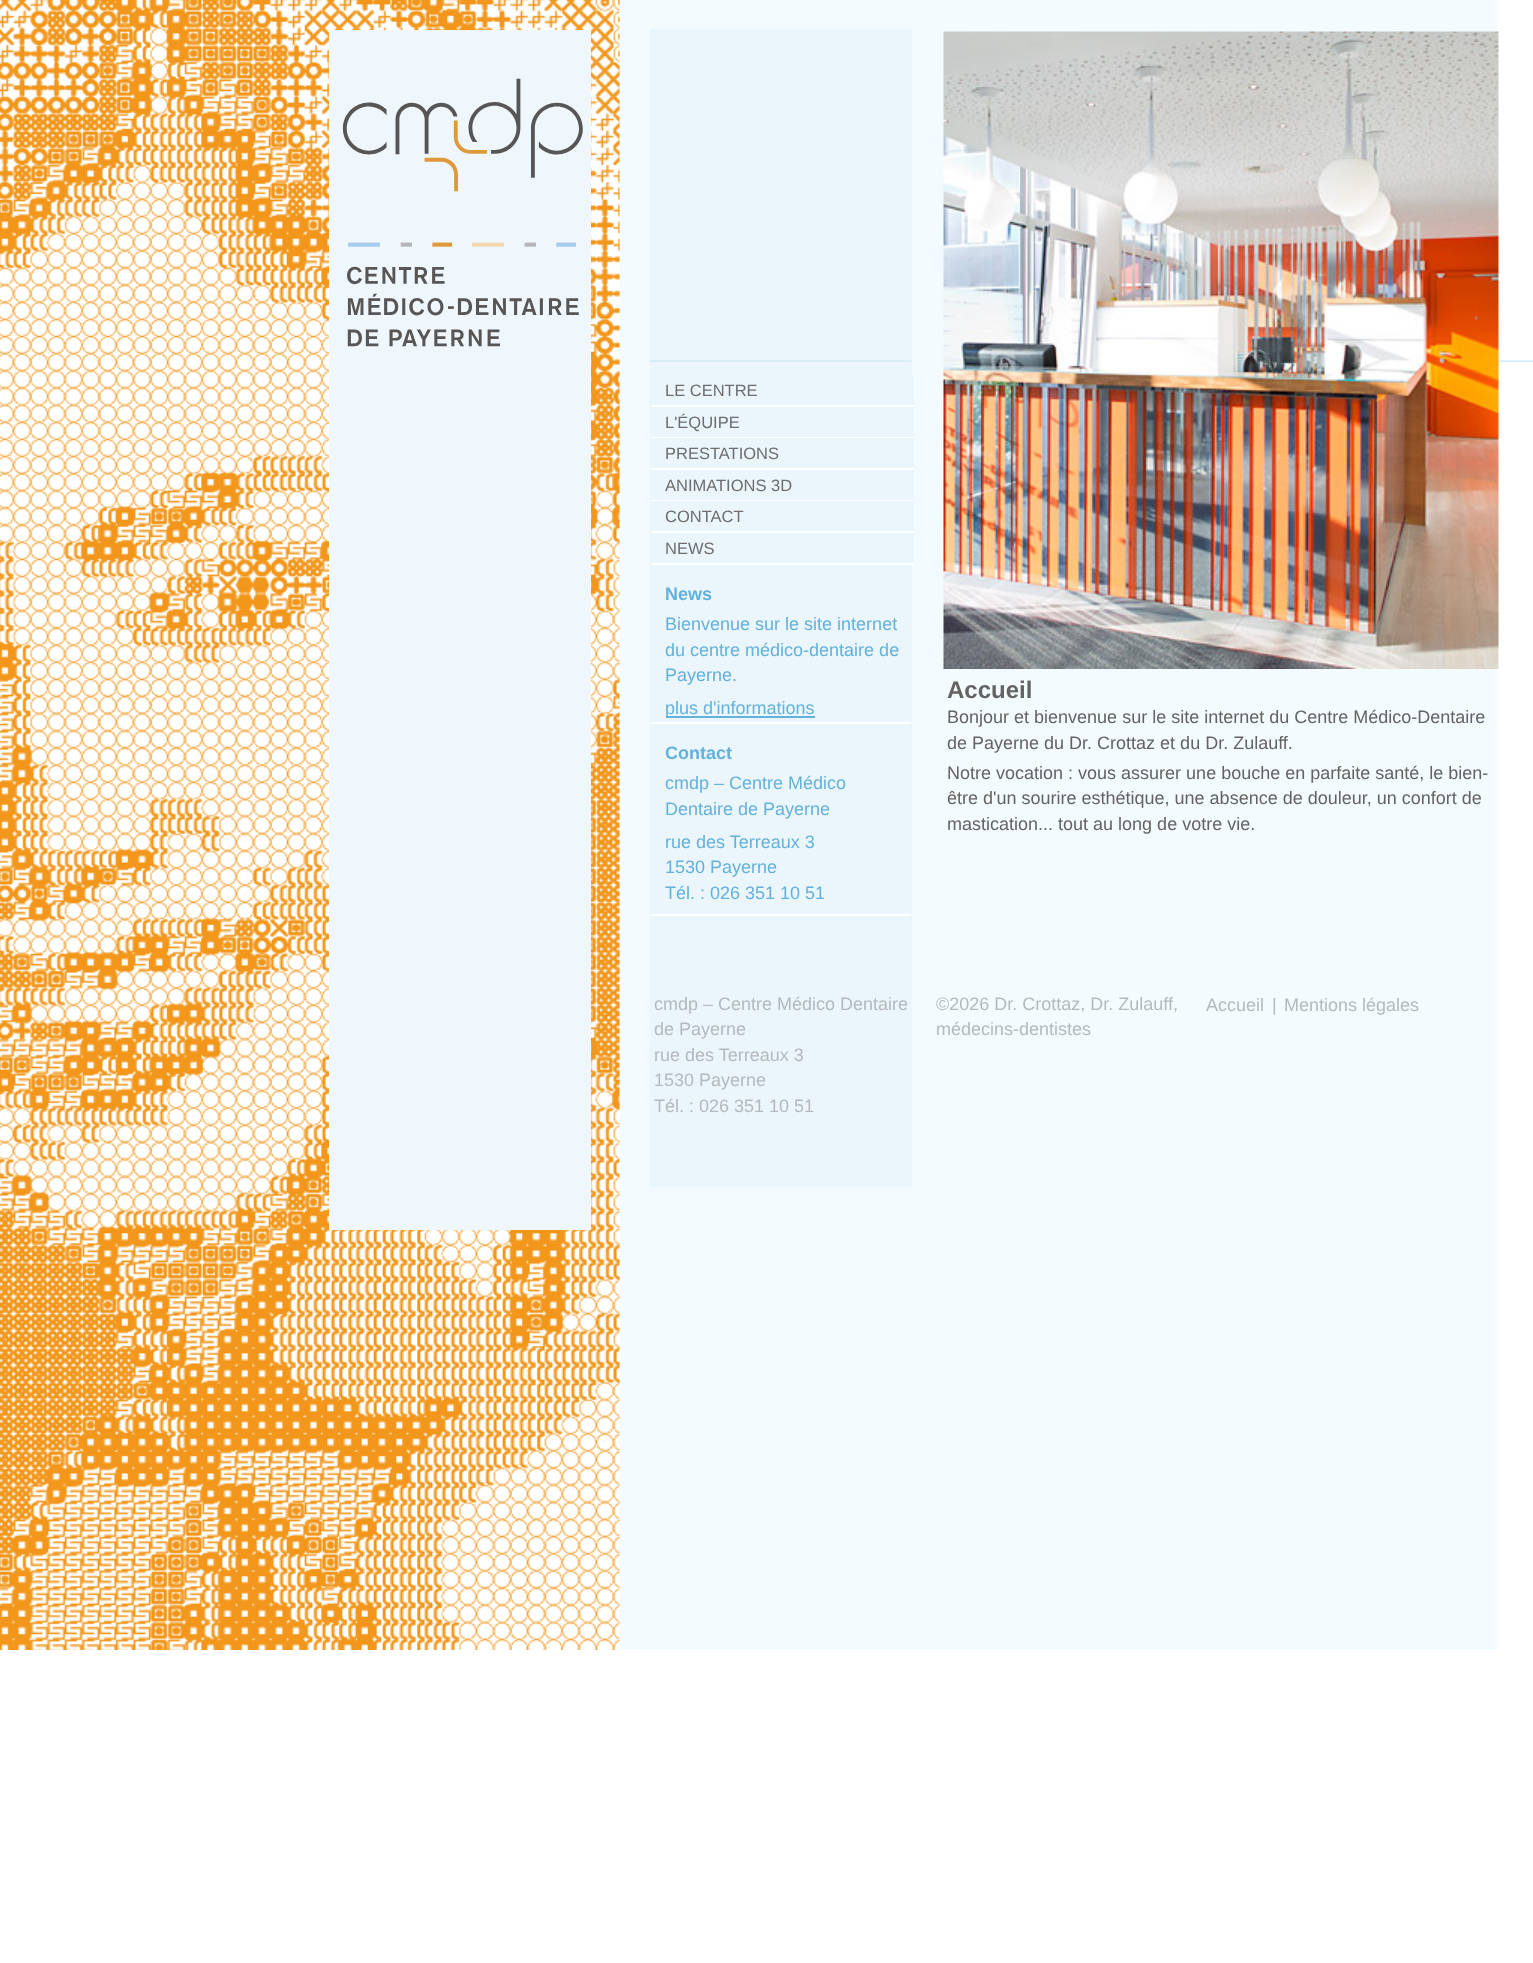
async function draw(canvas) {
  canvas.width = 1533;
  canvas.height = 1963;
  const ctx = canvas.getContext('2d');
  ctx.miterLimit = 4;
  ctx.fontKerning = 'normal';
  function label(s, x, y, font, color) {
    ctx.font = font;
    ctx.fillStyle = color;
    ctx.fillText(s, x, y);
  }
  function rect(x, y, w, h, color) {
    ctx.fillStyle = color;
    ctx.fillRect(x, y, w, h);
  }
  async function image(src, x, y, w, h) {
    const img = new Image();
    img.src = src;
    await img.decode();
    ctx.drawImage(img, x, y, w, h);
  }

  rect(0, 0, 1533, 1963, '#fff');
  await image('assets/img1.png', 0, 0, 1533, 1650);
  await image('assets/img2.png', 329, 30, 262, 1200);
  rect(912, 375, 2, 30, '#ebf6fc');
  rect(651, 405, 263, 2, '#fff');
  label('LE CENTRE', 665, 396, '16.5px Liberation Sans', '#6d6d6d');
  rect(912, 407, 2, 30, '#ebf6fc');
  rect(651, 437, 263, 1, '#fff');
  label('L\'ÉQUIPE', 665, 428, '16.5px Liberation Sans', '#6d6d6d');
  rect(912, 438, 2, 30, '#ebf6fc');
  rect(651, 468, 263, 2, '#fff');
  label('PRESTATIONS', 665, 459, '16.5px Liberation Sans', '#6d6d6d');
  rect(912, 470, 2, 30, '#ebf6fc');
  rect(651, 500, 263, 1, '#fff');
  label('ANIMATIONS 3D', 665, 491, '16.5px Liberation Sans', '#6d6d6d');
  rect(912, 501, 2, 30, '#ebf6fc');
  rect(651, 531, 263, 2, '#fff');
  label('CONTACT', 665, 522, '16.5px Liberation Sans', '#6d6d6d');
  rect(912, 533, 2, 30, '#ebf6fc');
  rect(651, 563, 263, 2, '#fff');
  label('NEWS', 665, 554, '16.5px Liberation Sans', '#6d6d6d');
  rect(651, 722, 260, 2, '#fff');
  label('News', 665, 600, 'bold 18px Liberation Sans', '#64b1db');
  label('Bienvenue sur le site internet', 665, 630, '18px Liberation Sans', '#64b1db');
  label('du centre médico-dentaire de', 665, 656, '18px Liberation Sans', '#64b1db');
  label('Payerne.', 665, 681, '18px Liberation Sans', '#64b1db');
  rect(666, 716, 149, 2, '#64b1db');
  label('plus d\'informations', 665, 714, '18px Liberation Sans', '#64b1db');
  rect(651, 914, 260, 2, '#fff');
  label('Contact', 665, 759, 'bold 18px Liberation Sans', '#64b1db');
  label('cmdp – Centre Médico', 665, 789, '18px Liberation Sans', '#64b1db');
  label('Dentaire de Payerne', 665, 815, '18px Liberation Sans', '#64b1db');
  label('rue des Terreaux 3', 665, 848, '18px Liberation Sans', '#64b1db');
  label('1530 Payerne', 665, 873, '18px Liberation Sans', '#64b1db');
  label('Tél. : 026 351 10 51', 665, 899, '18px Liberation Sans', '#64b1db');
  await image('assets/img3.png', 943, 31, 556, 638);
  label('Accueil', 947, 698, 'bold 24px Liberation Sans', '#636363');
  label('Bonjour et bienvenue sur le site internet du Centre Médico-Dentaire', 947, 723, '18px Liberation Sans', '#636363');
  label('de Payerne du Dr. Crottaz et du Dr. Zulauff.', 947, 749, '18px Liberation Sans', '#636363');
  label('Notre vocation : vous assurer une bouche en parfaite santé, le bien-', 947, 779, '18px Liberation Sans', '#636363');
  label('être d\'un sourire esthétique, une absence de douleur, un confort de', 947, 804, '18px Liberation Sans', '#636363');
  label('mastication... tout au long de votre vie.', 947, 830, '18px Liberation Sans', '#636363');
  label('cmdp – Centre Médico Dentaire', 654, 1010, '18px Liberation Sans', '#b4b9bd');
  label('de Payerne', 654, 1035, '18px Liberation Sans', '#b4b9bd');
  label('rue des Terreaux 3', 654, 1061, '18px Liberation Sans', '#b4b9bd');
  label('1530 Payerne', 654, 1086, '18px Liberation Sans', '#b4b9bd');
  label('Tél. : 026 351 10 51', 654, 1112, '18px Liberation Sans', '#b4b9bd');
  label('©2026 Dr. Crottaz, Dr. Zulauff,', 936, 1010, '18px Liberation Sans', '#b4b9bd');
  label('médecins-dentistes', 936, 1035, '18px Liberation Sans', '#b4b9bd');
  label('Accueil', 1206, 1011, '18px Liberation Sans', '#b4b9bd');
  label('|', 1272, 1011, '18px Liberation Sans', '#b4b9bd');
  label('Mentions légales', 1284, 1011, '18px Liberation Sans', '#b4b9bd');
}

draw(document.querySelector('canvas'));
